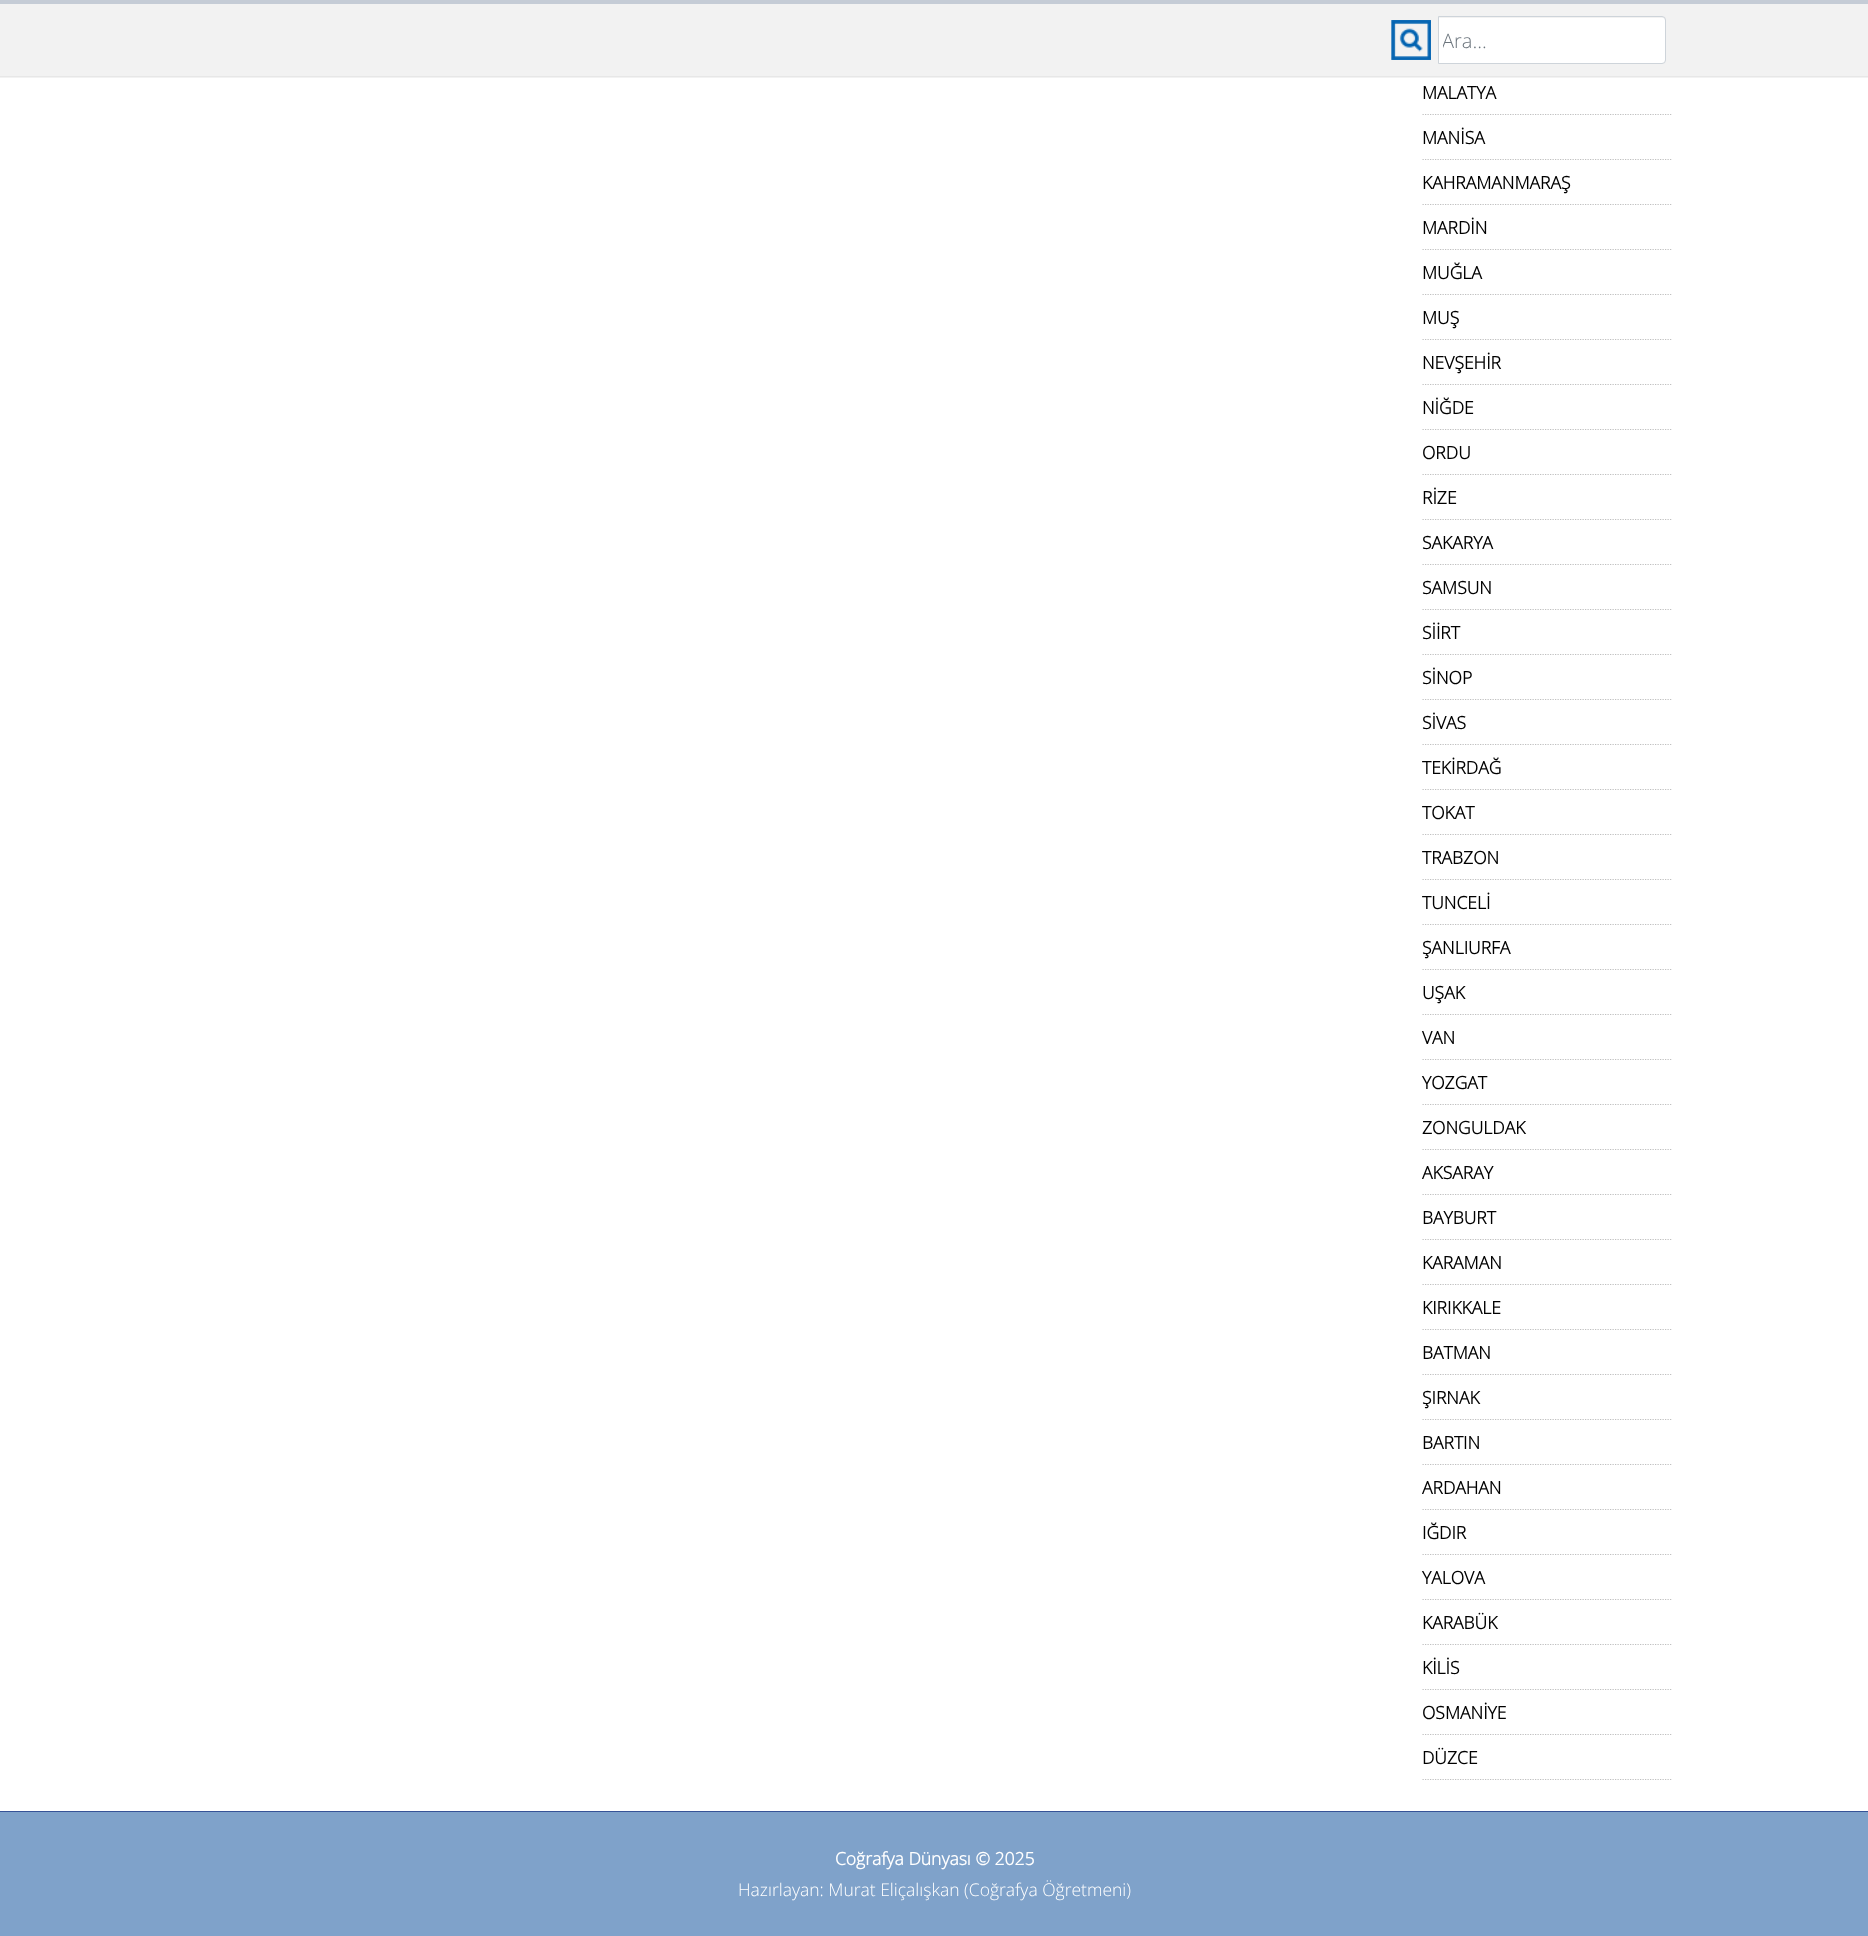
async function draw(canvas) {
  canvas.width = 1868;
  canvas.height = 1936;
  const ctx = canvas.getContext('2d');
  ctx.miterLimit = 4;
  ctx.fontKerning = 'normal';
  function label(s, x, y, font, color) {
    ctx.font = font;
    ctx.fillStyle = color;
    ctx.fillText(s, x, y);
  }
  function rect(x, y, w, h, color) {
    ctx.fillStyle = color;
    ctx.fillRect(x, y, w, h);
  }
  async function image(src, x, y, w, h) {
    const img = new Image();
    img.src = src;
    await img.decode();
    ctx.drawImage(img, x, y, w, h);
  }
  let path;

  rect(0, 0, 1868, 1936, '#fff');
  rect(0, 4, 1868, 74, '#f2f2f2');
  rect(0, 0, 1868, 4, '#c5ccd6');
  rect(0, 76, 1868, 1, '#e7e7e7');
  await image('assets/img1.png', 1391, 20, 40, 40);
  ctx.fillStyle = '#fff';
  ctx.beginPath();
  ctx.roundRect(1439, 18, 226, 45, [0, 2.5, 2.5, 0]);
  ctx.fill();
  ctx.beginPath();
  ctx.roundRect(1438.5, 16.5, 227, 47, [0, 3.5, 3.5, 0]);
  ctx.strokeStyle = '#ced4da';
  ctx.stroke();
  ctx.save();
  ctx.beginPath();
  ctx.rect(1443, 26, 218, 28);
  ctx.clip();
  label('Ara...', 1442, 48, '300 20px Open Sans', '#6c757d');
  ctx.restore();
  path = new Path2D('M1422.5 114.5H1672.5');
  ctx.strokeStyle = '#c0c0c0';
  ctx.lineWidth = 1.2;
  ctx.setLineDash([1.25, 1.25]);
  ctx.stroke(path);
  label('MALATYA', 1422, 99, 'bold 17.5px Open Sans', '#000');
  path = new Path2D('M1422.5 159.5H1672.5');
  ctx.stroke(path);
  label('MANİSA', 1422, 144, 'bold 17.5px Open Sans', '#000');
  path = new Path2D('M1422.5 204.5H1672.5');
  ctx.stroke(path);
  label('KAHRAMANMARAŞ', 1422, 189, 'bold 17.5px Open Sans', '#000');
  path = new Path2D('M1422.5 249.5H1672.5');
  ctx.stroke(path);
  label('MARDİN', 1422, 234, 'bold 17.5px Open Sans', '#000');
  path = new Path2D('M1422.5 294.5H1672.5');
  ctx.stroke(path);
  label('MUĞLA', 1422, 279, 'bold 17.5px Open Sans', '#000');
  path = new Path2D('M1422.5 339.5H1672.5');
  ctx.stroke(path);
  label('MUŞ', 1422, 324, 'bold 17.5px Open Sans', '#000');
  path = new Path2D('M1422.5 384.5H1672.5');
  ctx.stroke(path);
  label('NEVŞEHİR', 1422, 369, 'bold 17.5px Open Sans', '#000');
  path = new Path2D('M1422.5 429.5H1672.5');
  ctx.stroke(path);
  label('NİĞDE', 1422, 414, 'bold 17.5px Open Sans', '#000');
  path = new Path2D('M1422.5 474.5H1672.5');
  ctx.stroke(path);
  label('ORDU', 1422, 459, 'bold 17.5px Open Sans', '#000');
  path = new Path2D('M1422.5 519.5H1672.5');
  ctx.stroke(path);
  label('RİZE', 1422, 504, 'bold 17.5px Open Sans', '#000');
  path = new Path2D('M1422.5 564.5H1672.5');
  ctx.stroke(path);
  label('SAKARYA', 1422, 549, 'bold 17.5px Open Sans', '#000');
  path = new Path2D('M1422.5 609.5H1672.5');
  ctx.stroke(path);
  label('SAMSUN', 1422, 594, 'bold 17.5px Open Sans', '#000');
  path = new Path2D('M1422.5 654.5H1672.5');
  ctx.stroke(path);
  label('SİİRT', 1422, 639, 'bold 17.5px Open Sans', '#000');
  path = new Path2D('M1422.5 699.5H1672.5');
  ctx.stroke(path);
  label('SİNOP', 1422, 684, 'bold 17.5px Open Sans', '#000');
  path = new Path2D('M1422.5 744.5H1672.5');
  ctx.stroke(path);
  label('SİVAS', 1422, 729, 'bold 17.5px Open Sans', '#000');
  path = new Path2D('M1422.5 789.5H1672.5');
  ctx.stroke(path);
  label('TEKİRDAĞ', 1422, 774, 'bold 17.5px Open Sans', '#000');
  path = new Path2D('M1422.5 834.5H1672.5');
  ctx.stroke(path);
  label('TOKAT', 1422, 819, 'bold 17.5px Open Sans', '#000');
  path = new Path2D('M1422.5 879.5H1672.5');
  ctx.stroke(path);
  label('TRABZON', 1422, 864, 'bold 17.5px Open Sans', '#000');
  path = new Path2D('M1422.5 924.5H1672.5');
  ctx.stroke(path);
  label('TUNCELİ', 1422, 909, 'bold 17.5px Open Sans', '#000');
  path = new Path2D('M1422.5 969.5H1672.5');
  ctx.stroke(path);
  label('ŞANLIURFA', 1422, 954, 'bold 17.5px Open Sans', '#000');
  path = new Path2D('M1422.5 1014.5H1672.5');
  ctx.stroke(path);
  label('UŞAK', 1422, 999, 'bold 17.5px Open Sans', '#000');
  path = new Path2D('M1422.5 1059.5H1672.5');
  ctx.stroke(path);
  label('VAN', 1422, 1044, 'bold 17.5px Open Sans', '#000');
  path = new Path2D('M1422.5 1104.5H1672.5');
  ctx.stroke(path);
  label('YOZGAT', 1422, 1089, 'bold 17.5px Open Sans', '#000');
  path = new Path2D('M1422.5 1149.5H1672.5');
  ctx.stroke(path);
  label('ZONGULDAK', 1422, 1134, 'bold 17.5px Open Sans', '#000');
  path = new Path2D('M1422.5 1194.5H1672.5');
  ctx.stroke(path);
  label('AKSARAY', 1422, 1179, 'bold 17.5px Open Sans', '#000');
  path = new Path2D('M1422.5 1239.5H1672.5');
  ctx.stroke(path);
  label('BAYBURT', 1422, 1224, 'bold 17.5px Open Sans', '#000');
  path = new Path2D('M1422.5 1284.5H1672.5');
  ctx.stroke(path);
  label('KARAMAN', 1422, 1269, 'bold 17.5px Open Sans', '#000');
  path = new Path2D('M1422.5 1329.5H1672.5');
  ctx.stroke(path);
  label('KIRIKKALE', 1422, 1314, 'bold 17.5px Open Sans', '#000');
  path = new Path2D('M1422.5 1374.5H1672.5');
  ctx.stroke(path);
  label('BATMAN', 1422, 1359, 'bold 17.5px Open Sans', '#000');
  path = new Path2D('M1422.5 1419.5H1672.5');
  ctx.stroke(path);
  label('ŞIRNAK', 1422, 1404, 'bold 17.5px Open Sans', '#000');
  path = new Path2D('M1422.5 1464.5H1672.5');
  ctx.stroke(path);
  label('BARTIN', 1422, 1449, 'bold 17.5px Open Sans', '#000');
  path = new Path2D('M1422.5 1509.5H1672.5');
  ctx.stroke(path);
  label('ARDAHAN', 1422, 1494, 'bold 17.5px Open Sans', '#000');
  path = new Path2D('M1422.5 1554.5H1672.5');
  ctx.stroke(path);
  label('IĞDIR', 1422, 1539, 'bold 17.5px Open Sans', '#000');
  path = new Path2D('M1422.5 1599.5H1672.5');
  ctx.stroke(path);
  label('YALOVA', 1422, 1584, 'bold 17.5px Open Sans', '#000');
  path = new Path2D('M1422.5 1644.5H1672.5');
  ctx.stroke(path);
  label('KARABÜK', 1422, 1629, 'bold 17.5px Open Sans', '#000');
  path = new Path2D('M1422.5 1689.5H1672.5');
  ctx.stroke(path);
  label('KİLİS', 1422, 1674, 'bold 17.5px Open Sans', '#000');
  path = new Path2D('M1422.5 1734.5H1672.5');
  ctx.stroke(path);
  label('OSMANİYE', 1422, 1719, 'bold 17.5px Open Sans', '#000');
  path = new Path2D('M1422.5 1779.5H1672.5');
  ctx.stroke(path);
  label('DÜZCE', 1422, 1764, 'bold 17.5px Open Sans', '#000');
  rect(0, 1812, 1868, 124, '#7fa2ca');
  rect(0, 1811, 1868, 1, '#365397');
  label('Coğrafya Dünyası © 2025', 835, 1865, 'bold 17.5px Open Sans', '#fff');
  label('Hazırlayan: Murat Eliçalışkan (Coğrafya Öğretmeni)', 738, 1896, '300 17.5px Open Sans', '#fff');
}

draw(document.querySelector('canvas'));
